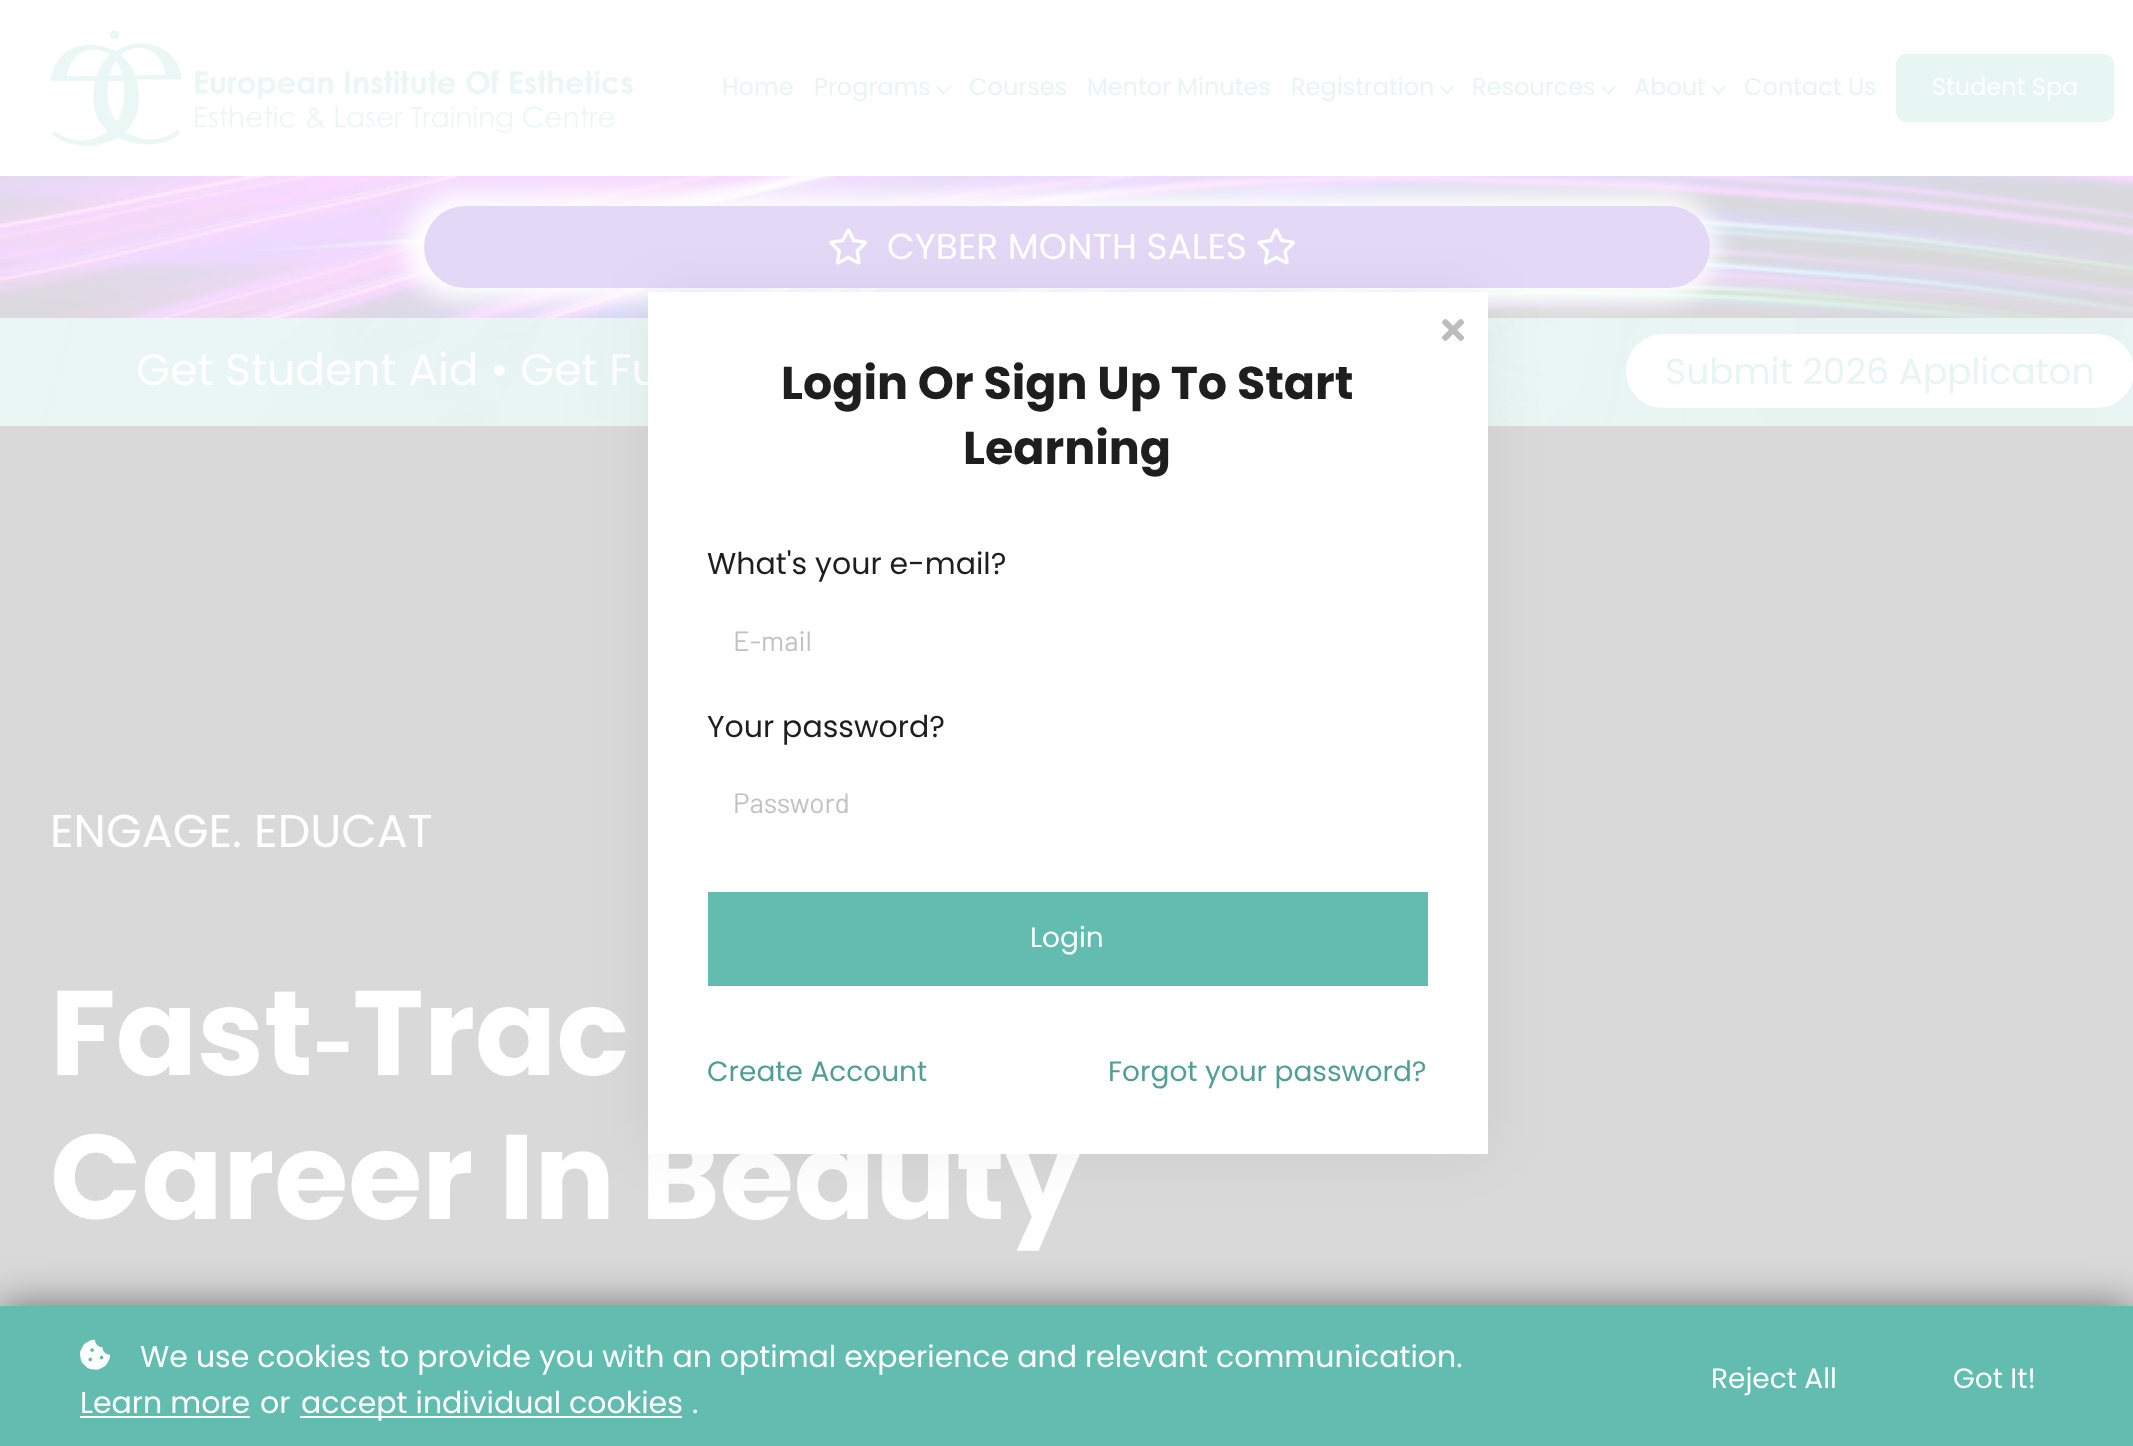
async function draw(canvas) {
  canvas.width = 2133;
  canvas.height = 1446;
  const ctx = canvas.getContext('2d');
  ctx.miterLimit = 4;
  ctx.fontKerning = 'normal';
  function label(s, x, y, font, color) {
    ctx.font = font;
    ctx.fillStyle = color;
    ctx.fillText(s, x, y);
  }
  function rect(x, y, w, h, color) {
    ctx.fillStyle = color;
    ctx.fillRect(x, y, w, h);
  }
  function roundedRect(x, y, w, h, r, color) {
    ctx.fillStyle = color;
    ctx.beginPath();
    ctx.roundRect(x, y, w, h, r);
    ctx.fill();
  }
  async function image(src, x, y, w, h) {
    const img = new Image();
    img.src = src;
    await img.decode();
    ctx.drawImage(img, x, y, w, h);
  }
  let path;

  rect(0, 0, 2133, 1446, '#fff');
  await image('assets/img1.png', 50, 30, 583, 116);
  label('Home', 722, 95, '24px Poppins', '#e7f5f3');
  label('Programs', 814, 95, '24px Poppins', '#e7f5f3');
  path = new Path2D('M950.5 87.5L943.5 94.5L942 93.5L949.5 86Z');
  ctx.fill(path);
  path = new Path2D('M945 93.5L943.5 94.5L936.5 87.5L938 86Z');
  ctx.fill(path);
  label('Courses', 969, 95, '24px Poppins', '#e7f5f3');
  label('Mentor Minutes', 1087, 95, '24px Poppins', '#e7f5f3');
  label('Registration', 1291, 95, '24px Poppins', '#e7f5f3');
  path = new Path2D('M1454 87.5L1447 94.5L1445.5 93.5L1452.5 86Z');
  ctx.fill(path);
  path = new Path2D('M1448.5 93.5L1447 94.5L1440 87.5L1441.5 86Z');
  ctx.fill(path);
  label('Resources', 1472, 95, '24px Poppins', '#e7f5f3');
  path = new Path2D('M1615.5 87.5L1608.5 94.5L1607 93.5L1614.5 86Z');
  ctx.fill(path);
  path = new Path2D('M1610 93.5L1608.5 94.5L1601.5 87.5L1603 86Z');
  ctx.fill(path);
  label('About', 1634, 95, '24px Poppins', '#e7f5f3');
  path = new Path2D('M1725.5 87.5L1718.5 94.5L1717 93.5L1724 86Z');
  ctx.fill(path);
  path = new Path2D('M1720 93.5L1718.5 94.5L1711.5 87.5L1713 86Z');
  ctx.fill(path);
  label('Contact Us', 1744, 95, '24px Poppins', '#e7f5f3');
  roundedRect(1896, 54, 218, 68, 10, '#e7f5f3');
  label('Student Spa', 1932, 95, '24px Poppins', '#fff');
  await image('assets/img2.png', 0, 176, 2133, 142);
  await image('assets/img4.png', 0, 318, 2133, 108);
  ctx.filter = 'blur(13px)';
  ctx.beginPath();
  ctx.roundRect(406, 194, 1310, 106, 53);
  ctx.fill();
  ctx.filter = 'none';
  roundedRect(424, 206, 1286, 82, 41, '#e3d9f7');
  await image('assets/img3.png', 829, 228, 39, 37);
  label('CYBER MONTH SALES', 887, 259, '36px Poppins', '#fff');
  await image('assets/img3.png', 1257, 228, 39, 37);
  rect(0, 318, 2133, 108, '#e7f5f3eb');
  label('Get Student Aid • Get Fu', 136, 385, '44px Poppins', '#fff');
  roundedRect(1626, 334, 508, 74, 37, '#fff');
  label('Submit 2026 Applicaton', 1665, 384, '36px Poppins', '#e7f5f3');
  rect(0, 426, 2133, 880, '#d9d9d9');
  label('ENGAGE. EDUCAT', 50, 847, '46px Poppins', '#fff');
  ctx.wordSpacing = '-7px';
  label('Fast‑Trac', 50, 1075, 'bold 120px Poppins', '#fff');
  ctx.wordSpacing = '0px';
  label('Career In Beauty', 50, 1219, 'bold 120px Poppins', '#fff');
  ctx.fillStyle = '#0000000d';
  ctx.filter = 'blur(30px)';
  ctx.beginPath();
  ctx.rect(648, 292, 840, 862);
  ctx.fill();
  ctx.filter = 'none';
  rect(648, 292, 840, 862, '#fff');
  await image('assets/img5.png', 1442, 319, 22, 22);
  label('Login Or Sign Up To Start', 781, 399, 'bold 46px Poppins', '#1e1e1e');
  label('Learning', 963, 464, 'bold 46px Poppins', '#1e1e1e');
  label('What\'s your e-mail?', 707, 574, '30px Poppins', '#1e1e1e');
  label('E-mail', 733, 651, '28px Barlow', '#c1c1c1');
  label('Your password?', 707, 737, '30px Poppins', '#1e1e1e');
  label('Password', 733, 813, '28px Barlow', '#c1c1c1');
  rect(708, 892, 720, 94, '#62bcb0');
  label('Login', 1030, 947, '28px Poppins', '#fff');
  label('Create Account', 707, 1081, '28px Poppins', '#519e94');
  label('Forgot your password?', 1108, 1081, '28px Poppins', '#519e94');
  ctx.fillStyle = '#00000080';
  ctx.filter = 'blur(20px)';
  ctx.beginPath();
  ctx.rect(0, 1306, 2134, 140);
  ctx.fill();
  ctx.filter = 'none';
  rect(0, 1306, 2133, 140, '#62bcb0');
  await image('assets/img6.png', 80, 1339, 30, 31);
  label('We use cookies to provide you with an optimal experience and relevant communication.', 140, 1367, '30px Poppins', '#fff');
  label('Learn more', 80, 1413, '30px Poppins', '#fff');
  rect(80, 1416, 170, 2, '#fff');
  label('or', 260, 1413, '30px Poppins', '#fff');
  rect(300, 1416, 382, 2, '#fff');
  label('accept individual cookies', 301, 1413, '30px Poppins', '#fff');
  label('.', 692, 1413, '30px Poppins', '#fff');
  label('Reject All', 1711, 1388, '28px Poppins', '#fff');
  label('Got It!', 1953, 1388, '28px Poppins', '#fff');
}

draw(document.querySelector('canvas'));
